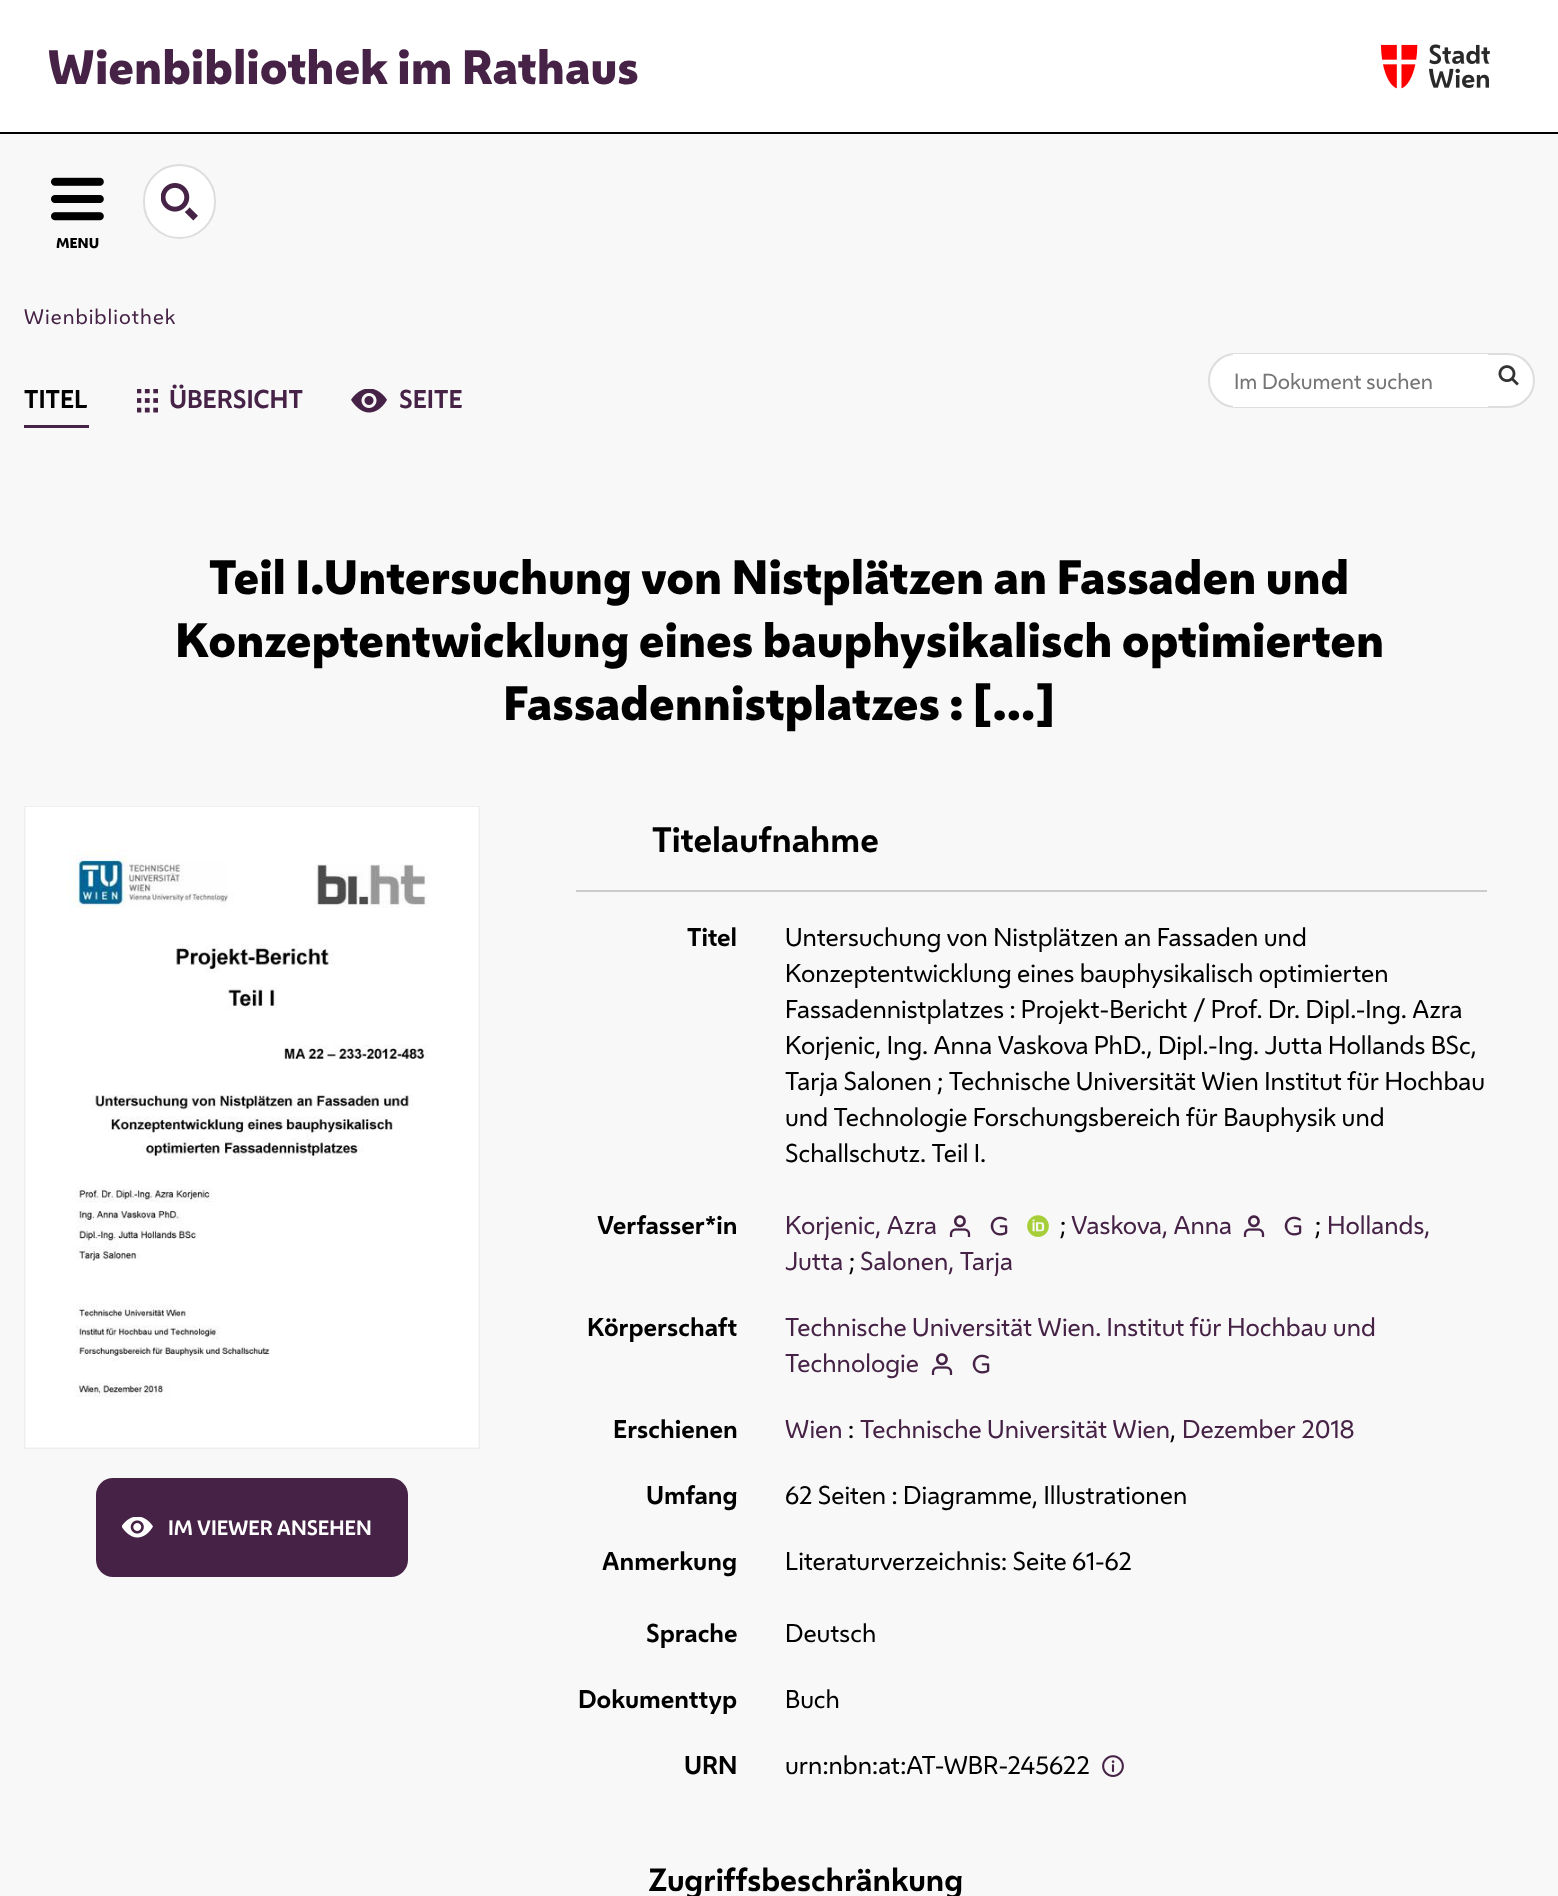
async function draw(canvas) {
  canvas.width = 1558;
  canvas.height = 1896;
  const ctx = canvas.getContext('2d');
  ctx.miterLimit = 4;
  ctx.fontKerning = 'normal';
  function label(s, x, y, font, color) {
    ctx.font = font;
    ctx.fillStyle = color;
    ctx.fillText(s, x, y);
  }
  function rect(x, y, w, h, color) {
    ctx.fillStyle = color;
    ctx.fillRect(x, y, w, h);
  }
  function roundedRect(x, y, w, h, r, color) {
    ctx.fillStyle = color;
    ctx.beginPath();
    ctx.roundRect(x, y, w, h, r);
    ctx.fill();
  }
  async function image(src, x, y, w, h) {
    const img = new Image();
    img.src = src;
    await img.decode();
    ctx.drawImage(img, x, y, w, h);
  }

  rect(0, 0, 1558, 1896, '#f8f8f8');
  rect(0, 0, 1558, 132, '#fff');
  rect(0, 132, 1558, 2, '#000');
  label('Wienbibliothek im Rathaus', 48, 84, '800 45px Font', '#462346');
  await image('assets/img1.png', 1381, 44, 109, 45);
  ctx.fillStyle = '#fff';
  ctx.beginPath();
  ctx.roundRect(144, 165, 71, 73, 35.5);
  ctx.fill();
  ctx.strokeStyle = '#ddd';
  ctx.lineWidth = 2;
  ctx.stroke();
  await image('assets/img2.png', 161, 183, 37, 38);
  await image('assets/img3.png', 51, 177, 53, 44);
  label('MENU', 56, 248, '800 13.5px Font', '#000');
  ctx.letterSpacing = '1px';
  label('Wienbibliothek', 24, 324, '19.75px Font', '#462346');
  ctx.fillStyle = '#fff';
  ctx.beginPath();
  ctx.roundRect(1209, 354, 325, 53, 26.5);
  ctx.fill();
  ctx.stroke();
  rect(1233, 354, 255, 53, '#fff');
  ctx.letterSpacing = '0px';
  label('Im Dokument suchen', 1234, 389, '20.5px Font', '#757575');
  await image('assets/img4.png', 1498, 365, 21, 21);
  rect(24, 425, 65, 3, '#462346');
  label('TITEL', 24, 408, 'bold 24px Font', '#000');
  await image('assets/img5.png', 137, 389, 21, 24);
  label('ÜBERSICHT', 169, 408, 'bold 24px Font', '#462346');
  await image('assets/img6.png', 351, 389, 36, 24);
  label('SEITE', 399, 408, 'bold 24px Font', '#462346');
  label('Teil I.Untersuchung von Nistplätzen an Fassaden und', 209, 594, '800 45px Font', '#000');
  label('Konzeptentwicklung eines bauphysikalisch optimierten', 175, 657, '800 45px Font', '#000');
  label('Fassadennistplatzes : [...]', 503, 720, '800 45px Font', '#000');
  ctx.strokeStyle = '#eeeeec';
  ctx.strokeRect(25, 807, 454, 641);
  await image('assets/img7.png', 25, 807, 454, 641);
  roundedRect(96, 1478, 312, 99, 17, '#462346');
  await image('assets/img8.png', 122, 1517, 31, 21);
  label('IM VIEWER ANSEHEN', 168, 1535, 'bold 19.5px Font', '#fff');
  rect(576, 890, 911, 2, '#ccc');
  label('Titelaufnahme', 652, 852, 'bold 33px Font', '#000');
  label('Titel', 687, 946, 'bold 24px Font', '#000');
  label('Untersuchung von Nistplätzen an Fassaden und', 785, 946, '24px Font', '#000');
  label('Konzeptentwicklung eines bauphysikalisch optimierten', 785, 982, '24px Font', '#000');
  label('Fassadennistplatzes : Projekt-Bericht / Prof. Dr. Dipl.-Ing. Azra', 785, 1018, '24px Font', '#000');
  label('Korjenic, Ing. Anna Vaskova PhD., Dipl.-Ing. Jutta Hollands BSc,', 785, 1054, '24px Font', '#000');
  label('Tarja Salonen ; Technische Universität Wien Institut für Hochbau', 785, 1090, '24px Font', '#000');
  label('und Technologie Forschungsbereich für Bauphysik und', 785, 1126, '24px Font', '#000');
  label('Schallschutz. Teil I.', 785, 1162, '24px Font', '#000');
  label('Verfasser*in', 597, 1234, 'bold 24px Font', '#000');
  label('Korjenic, Azra', 785, 1234, '24px Font', '#462346');
  await image('assets/img9.png', 949, 1215, 22, 22);
  await image('assets/img10.png', 990, 1216, 18, 20);
  await image('assets/img11.png', 1027, 1215, 22, 22);
  label(';', 1060, 1234, '24px Font', '#000');
  label('Vaskova, Anna', 1071, 1234, '24px Font', '#462346');
  await image('assets/img9.png', 1243, 1215, 22, 22);
  await image('assets/img10.png', 1284, 1216, 18, 20);
  label(';', 1315, 1234, '24px Font', '#000');
  label('Hollands,', 1327, 1234, '24px Font', '#462346');
  label('Jutta', 785, 1270, '24px Font', '#462346');
  label(';', 849, 1270, '24px Font', '#000');
  label('Salonen, Tarja', 860, 1270, '24px Font', '#462346');
  label('Körperschaft', 587, 1336, 'bold 24px Font', '#000');
  label('Technische Universität Wien. Institut für Hochbau und', 785, 1336, '24px Font', '#462346');
  label('Technologie', 785, 1372, '24px Font', '#462346');
  await image('assets/img9.png', 931, 1353, 22, 22);
  await image('assets/img10.png', 972, 1354, 18, 20);
  label('Erschienen', 613, 1438, 'bold 24px Font', '#000');
  label('Wien', 785, 1438, '24px Font', '#462346');
  label(':', 848, 1438, '24px Font', '#000');
  label('Technische Universität Wien', 860, 1438, '24px Font', '#462346');
  label(',', 1170, 1438, '24px Font', '#000');
  label('Dezember 2018', 1182, 1438, '24px Font', '#462346');
  label('Umfang', 646, 1504, 'bold 24px Font', '#000');
  label('62 Seiten : Diagramme, Illustrationen', 785, 1504, '24px Font', '#000');
  label('Anmerkung', 602, 1570, 'bold 24px Font', '#000');
  label('Literaturverzeichnis: Seite 61-62', 785, 1570, '24px Font', '#000');
  label('Sprache', 646, 1642, 'bold 24px Font', '#000');
  label('Deutsch', 785, 1642, '24px Font', '#000');
  label('Dokumenttyp', 578, 1708, 'bold 24px Font', '#000');
  label('Buch', 785, 1708, '24px Font', '#000');
  label('URN', 684, 1774, 'bold 24px Font', '#000');
  label('urn:nbn:at:AT-WBR-245622', 785, 1774, '24px Font', '#000');
  await image('assets/img12.png', 1102, 1755, 22, 22);
  label('Zugriffsbeschränkung', 648, 1891, 'bold 30px Font', '#000');
}

draw(document.querySelector('canvas'));
